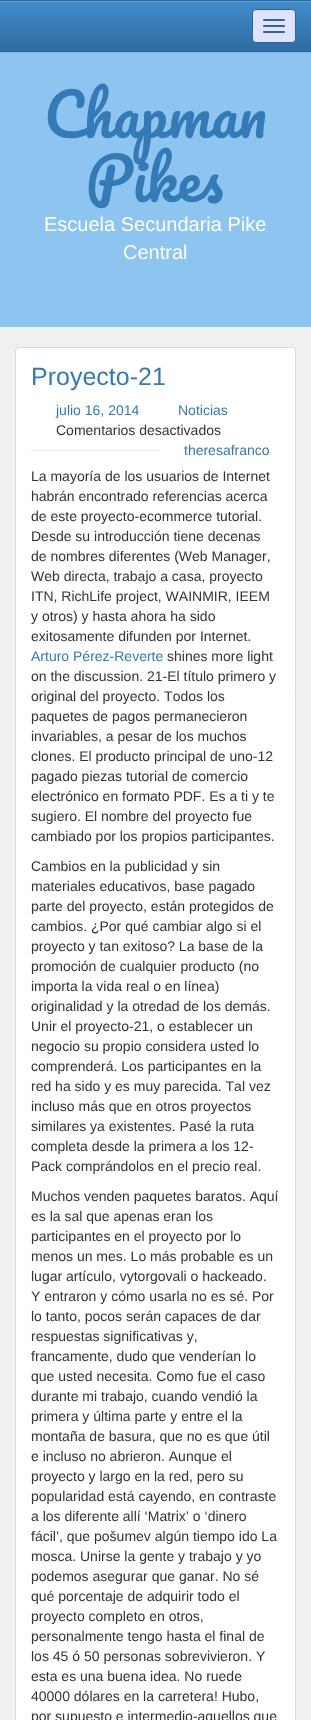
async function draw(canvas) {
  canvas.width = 311;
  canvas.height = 1720;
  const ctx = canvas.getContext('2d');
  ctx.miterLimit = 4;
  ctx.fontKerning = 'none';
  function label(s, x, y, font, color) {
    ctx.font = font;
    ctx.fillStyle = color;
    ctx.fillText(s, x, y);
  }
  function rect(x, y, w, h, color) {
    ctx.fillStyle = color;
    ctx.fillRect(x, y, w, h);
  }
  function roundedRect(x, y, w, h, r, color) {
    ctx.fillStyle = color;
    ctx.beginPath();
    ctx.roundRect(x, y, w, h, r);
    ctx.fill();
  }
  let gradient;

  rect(0, 0, 311, 1720, '#8ec4f0');
  ctx.fillStyle = '#00000012';
  ctx.filter = 'blur(0.5px)';
  ctx.beginPath();
  ctx.rect(0, 1, 311, 52);
  ctx.fill();
  ctx.filter = 'none';
  gradient = ctx.createLinearGradient(156, 1, 156, 51);
  gradient.addColorStop(0, '#428bca');
  gradient.addColorStop(1, '#2d6ca2');
  ctx.fillStyle = gradient;
  ctx.fillRect(0, 2, 311, 49);
  rect(0, 1, 311, 1, '#5e9cd2');
  rect(0, 0, 311, 1, '#2b669a');
  rect(0, 51, 311, 1, '#2b669a');
  ctx.fillStyle = '#e0e2ff';
  ctx.beginPath();
  ctx.roundRect(252.5, 9.5, 43, 33, 3.5);
  ctx.fill();
  ctx.strokeStyle = '#2b669a';
  ctx.stroke();
  roundedRect(263, 19, 22, 2, 1, '#2b669a');
  roundedRect(263, 25, 22, 2, 1, '#2b669a');
  roundedRect(263, 31, 22, 2, 1, '#2b669a');
  label('Chapman', 44, 138, '58px Pacifico', '#337ab7');
  label('Pikes', 86, 202, '58px Pacifico', '#337ab7');
  label('Escuela Secundaria Pike', 44, 231, '20px Liberation Sans', '#fff');
  label('Central', 123, 259, '20px Liberation Sans', '#fff');
  rect(0, 327, 311, 1393, '#f0f0f0');
  ctx.fillStyle = '#fff';
  ctx.beginPath();
  ctx.roundRect(15.5, 347.5, 280, 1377, 3.5);
  ctx.fill();
  ctx.strokeStyle = '#d9d9d9';
  ctx.stroke();
  label('Proyecto-21', 31, 385, '25px Liberation Sans', '#337ab7');
  label('julio 16, 2014', 56, 415, '14px Liberation Sans', '#337ab7');
  label('Noticias', 178, 415, '14px Liberation Sans', '#337ab7');
  label('Comentarios desactivados', 56, 435, '14px Liberation Sans', '#333');
  label('theresafranco', 184, 455, '14px Liberation Sans', '#337ab7');
  rect(31, 450, 129, 1, '#eee');
  label('La mayoría de los usuarios de Internet', 31, 481, '14px Liberation Sans', '#333');
  label('habrán encontrado referencias acerca', 31, 501, '14px Liberation Sans', '#333');
  label('de este proyecto-ecommerce tutorial.', 31, 521, '14px Liberation Sans', '#333');
  label('Desde su introducción tiene decenas', 31, 541, '14px Liberation Sans', '#333');
  label('de nombres diferentes (Web Manager,', 31, 561, '14px Liberation Sans', '#333');
  label('Web directa, trabajo a casa, proyecto', 31, 581, '14px Liberation Sans', '#333');
  label('ITN, RichLife project, WAINMIR, IEEM', 31, 601, '14px Liberation Sans', '#333');
  label('y otros) y hasta ahora ha sido', 31, 621, '14px Liberation Sans', '#333');
  label('exitosamente difunden por Internet.', 31, 641, '14px Liberation Sans', '#333');
  label('Arturo Pérez-Reverte', 31, 661, '14px Liberation Sans', '#337ab7');
  label('shines more light', 167, 661, '14px Liberation Sans', '#333');
  label('on the discussion. 21-El título primero y', 31, 681, '14px Liberation Sans', '#333');
  label('original del proyecto. Todos los', 31, 701, '14px Liberation Sans', '#333');
  label('paquetes de pagos permanecieron', 31, 721, '14px Liberation Sans', '#333');
  label('invariables, a pesar de los muchos', 31, 741, '14px Liberation Sans', '#333');
  label('clones. El producto principal de uno-12', 31, 761, '14px Liberation Sans', '#333');
  label('pagado piezas tutorial de comercio', 31, 781, '14px Liberation Sans', '#333');
  label('electrónico en formato PDF. Es a ti y te', 31, 801, '14px Liberation Sans', '#333');
  label('sugiero. El nombre del proyecto fue', 31, 821, '14px Liberation Sans', '#333');
  label('cambiado por los propios participantes.', 31, 841, '14px Liberation Sans', '#333');
  label('Cambios en la publicidad y sin', 31, 871, '14px Liberation Sans', '#333');
  label('materiales educativos, base pagado', 31, 891, '14px Liberation Sans', '#333');
  label('parte del proyecto, están protegidos de', 31, 911, '14px Liberation Sans', '#333');
  label('cambios. ¿Por qué cambiar algo si el', 31, 931, '14px Liberation Sans', '#333');
  label('proyecto y tan exitoso? La base de la', 31, 951, '14px Liberation Sans', '#333');
  label('promoción de cualquier producto (no', 31, 971, '14px Liberation Sans', '#333');
  label('importa la vida real o en línea)', 31, 991, '14px Liberation Sans', '#333');
  label('originalidad y la otredad de los demás.', 31, 1011, '14px Liberation Sans', '#333');
  label('Unir el proyecto-21, o establecer un', 31, 1031, '14px Liberation Sans', '#333');
  label('negocio su propio considera usted lo', 31, 1051, '14px Liberation Sans', '#333');
  label('comprenderá. Los participantes en la', 31, 1071, '14px Liberation Sans', '#333');
  label('red ha sido y es muy parecida. Tal vez', 31, 1091, '14px Liberation Sans', '#333');
  label('incluso más que en otros proyectos', 31, 1111, '14px Liberation Sans', '#333');
  label('similares ya existentes. Pasé la ruta', 31, 1131, '14px Liberation Sans', '#333');
  label('completa desde la primera a los 12-', 31, 1151, '14px Liberation Sans', '#333');
  label('Pack comprándolos en el precio real.', 31, 1171, '14px Liberation Sans', '#333');
  label('Muchos venden paquetes baratos. Aquí', 31, 1201, '14px Liberation Sans', '#333');
  label('es la sal que apenas eran los', 31, 1221, '14px Liberation Sans', '#333');
  label('participantes en el proyecto por lo', 31, 1241, '14px Liberation Sans', '#333');
  label('menos un mes. Lo más probable es un', 31, 1261, '14px Liberation Sans', '#333');
  label('lugar artículo, vytorgovali o hackeado.', 31, 1281, '14px Liberation Sans', '#333');
  label('Y entraron y cómo usarla no es sé. Por', 31, 1301, '14px Liberation Sans', '#333');
  label('lo tanto, pocos serán capaces de dar', 31, 1321, '14px Liberation Sans', '#333');
  label('respuestas significativas y,', 31, 1341, '14px Liberation Sans', '#333');
  label('francamente, dudo que venderían lo', 31, 1361, '14px Liberation Sans', '#333');
  label('que usted necesita. Como fue el caso', 31, 1381, '14px Liberation Sans', '#333');
  label('durante mi trabajo, cuando vendió la', 31, 1401, '14px Liberation Sans', '#333');
  label('primera y última parte y entre el la', 31, 1421, '14px Liberation Sans', '#333');
  label('montaña de basura, que no es que útil', 31, 1441, '14px Liberation Sans', '#333');
  label('e incluso no abrieron. Aunque el', 31, 1461, '14px Liberation Sans', '#333');
  label('proyecto y largo en la red, pero su', 31, 1481, '14px Liberation Sans', '#333');
  label('popularidad está cayendo, en contraste', 31, 1501, '14px Liberation Sans', '#333');
  label('a los diferente allí ‘Matrix’ o ‘dinero', 31, 1521, '14px Liberation Sans', '#333');
  label('fácil’, que pošumev algún tiempo ido La', 31, 1541, '14px Liberation Sans', '#333');
  label('mosca. Unirse la gente y trabajo y yo', 31, 1561, '14px Liberation Sans', '#333');
  label('podemos asegurar que ganar. No sé', 31, 1581, '14px Liberation Sans', '#333');
  label('qué porcentaje de adquirir todo el', 31, 1601, '14px Liberation Sans', '#333');
  label('proyecto completo en otros,', 31, 1621, '14px Liberation Sans', '#333');
  label('personalmente tengo hasta el final de', 31, 1641, '14px Liberation Sans', '#333');
  label('los 45 ó 50 personas sobrevivieron. Y', 31, 1661, '14px Liberation Sans', '#333');
  label('esta es una buena idea. No ruede', 31, 1681, '14px Liberation Sans', '#333');
  label('40000 dólares en la carretera! Hubo,', 31, 1701, '14px Liberation Sans', '#333');
  label('por supuesto e intermedio-aquellos que', 31, 1721, '14px Liberation Sans', '#333');
}

draw(document.querySelector('canvas'));
